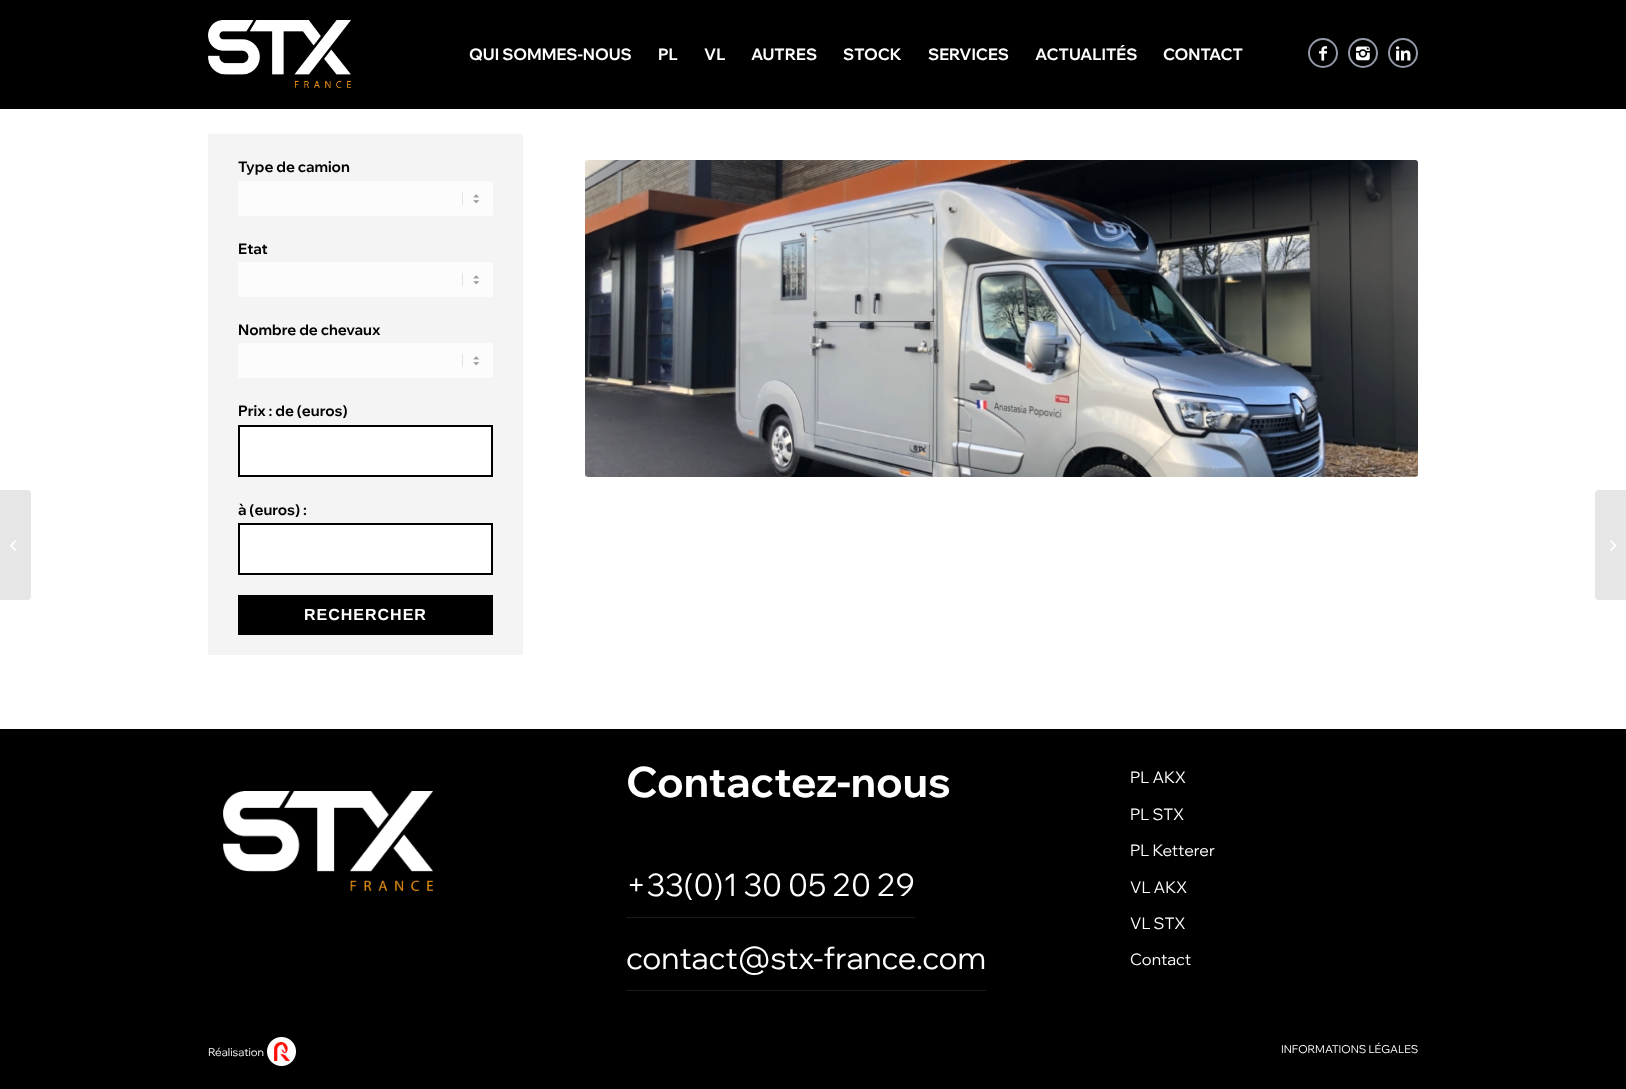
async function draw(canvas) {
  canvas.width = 1626;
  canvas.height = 1089;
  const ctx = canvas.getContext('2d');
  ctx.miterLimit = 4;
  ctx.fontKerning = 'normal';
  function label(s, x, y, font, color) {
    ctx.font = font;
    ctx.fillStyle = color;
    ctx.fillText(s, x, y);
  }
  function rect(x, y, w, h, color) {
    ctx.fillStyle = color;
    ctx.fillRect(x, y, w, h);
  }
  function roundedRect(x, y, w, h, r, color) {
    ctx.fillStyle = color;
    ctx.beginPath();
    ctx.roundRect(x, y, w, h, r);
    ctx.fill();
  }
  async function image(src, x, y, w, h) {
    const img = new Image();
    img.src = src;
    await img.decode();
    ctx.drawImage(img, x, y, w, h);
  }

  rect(0, 0, 1626, 1089, '#000');
  rect(0, 109, 1626, 620, '#fff');
  ctx.fillStyle = '#e6e6e6';
  ctx.beginPath();
  ctx.roundRect(0, 490, 31, 110, [0, 4, 4, 0]);
  ctx.fill();
  await image('assets/img1.png', 10, 540, 7, 11);
  await image('assets/img2.png', 208, 20, 143, 68);
  label('QUI SOMMES-NOUS', 469, 60, 'bold 16px Wix Madefor Display', '#fff');
  label('PL', 658, 60, 'bold 16px Wix Madefor Display', '#fff');
  label('VL', 704, 60, 'bold 16px Wix Madefor Display', '#fff');
  label('AUTRES', 751, 60, 'bold 16px Wix Madefor Display', '#fff');
  label('STOCK', 843, 60, 'bold 16px Wix Madefor Display', '#fff');
  label('SERVICES', 928, 60, 'bold 16px Wix Madefor Display', '#fff');
  label('ACTUALITÉS', 1035, 60, 'bold 16px Wix Madefor Display', '#fff');
  label('CONTACT', 1163, 60, 'bold 16px Wix Madefor Display', '#fff');
  ctx.beginPath();
  ctx.arc(1323, 53, 14, 0, 2 * Math.PI);
  ctx.strokeStyle = '#9499a8';
  ctx.lineWidth = 2;
  ctx.stroke();
  await image('assets/img3.png', 1319, 46, 8, 15);
  ctx.beginPath();
  ctx.arc(1363, 53, 14, 0, 2 * Math.PI);
  ctx.stroke();
  await image('assets/img4.png', 1356, 46, 14, 15);
  ctx.beginPath();
  ctx.arc(1403, 53, 14, 0, 2 * Math.PI);
  ctx.stroke();
  await image('assets/img5.png', 1396, 46, 15, 15);
  rect(208, 134, 315, 521, '#f4f4f4');
  label('Type de camion', 238, 172, 'bold 14.75px Wix Madefor Display', '#000');
  roundedRect(238, 181, 255, 35, 2, '#fcfcfc');
  await image('assets/img6.png', 462, 192, 18, 13);
  label('Etat', 238, 254, 'bold 14.75px Wix Madefor Display', '#000');
  roundedRect(238, 262, 255, 35, 2, '#fcfcfc');
  await image('assets/img6.png', 462, 273, 18, 13);
  label('Nombre de chevaux', 238, 335, 'bold 14.75px Wix Madefor Display', '#000');
  roundedRect(238, 343, 255, 35, 2, '#fcfcfc');
  await image('assets/img6.png', 462, 354, 18, 13);
  label('Prix : de (euros)', 238, 416, 'bold 14.75px Wix Madefor Display', '#000');
  ctx.fillStyle = '#fff';
  ctx.beginPath();
  ctx.rect(239, 426, 253, 50);
  ctx.fill();
  ctx.strokeStyle = '#000';
  ctx.stroke();
  label('à (euros) :', 238, 515, 'bold 14.75px Wix Madefor Display', '#000');
  ctx.fillStyle = '#fff';
  ctx.beginPath();
  ctx.rect(239, 524, 253, 50);
  ctx.fill();
  ctx.stroke();
  rect(238, 595, 255, 40, '#000');
  ctx.letterSpacing = '1px';
  label('RECHERCHER', 304, 620, 'bold 16px Liberation Sans', '#fff');
  await image('assets/img7.png', 585, 160, 833, 317);
  ctx.fillStyle = '#e6e6e6';
  ctx.beginPath();
  ctx.roundRect(1595, 490, 31, 110, [4, 0, 0, 4]);
  ctx.fill();
  await image('assets/img8.png', 1610, 540, 7, 11);
  await image('assets/img9.png', 223, 791, 210, 100);
  ctx.letterSpacing = '0px';
  label('Contactez-nous', 626, 797, 'bold 42px Wix Madefor Display', '#fff');
  label('+33(0)1 30 05 20 29', 626, 896, '31px Wix Madefor Display', '#fff');
  rect(626, 917, 289, 1, '#1a1a1a');
  label('contact@stx-france.com', 626, 969, '31px Wix Madefor Display', '#fff');
  rect(626, 990, 360, 1, '#1a1a1a');
  label('PL AKX', 1130, 783, '16px Wix Madefor Display', '#fff');
  label('PL STX', 1130, 820, '16px Wix Madefor Display', '#fff');
  label('PL Ketterer', 1130, 856, '16px Wix Madefor Display', '#fff');
  label('VL AKX', 1130, 893, '16px Wix Madefor Display', '#fff');
  label('VL STX', 1130, 929, '16px Wix Madefor Display', '#fff');
  label('Contact', 1130, 965, '16px Wix Madefor Display', '#fff');
  label('Réalisation', 208, 1056, '11px Wix Madefor Display', '#fff');
  await image('assets/img10.png', 267, 1037, 29, 29);
  label('INFORMATIONS LÉGALES', 1281, 1053, '11px Wix Madefor Display', '#fff');
}

draw(document.querySelector('canvas'));
